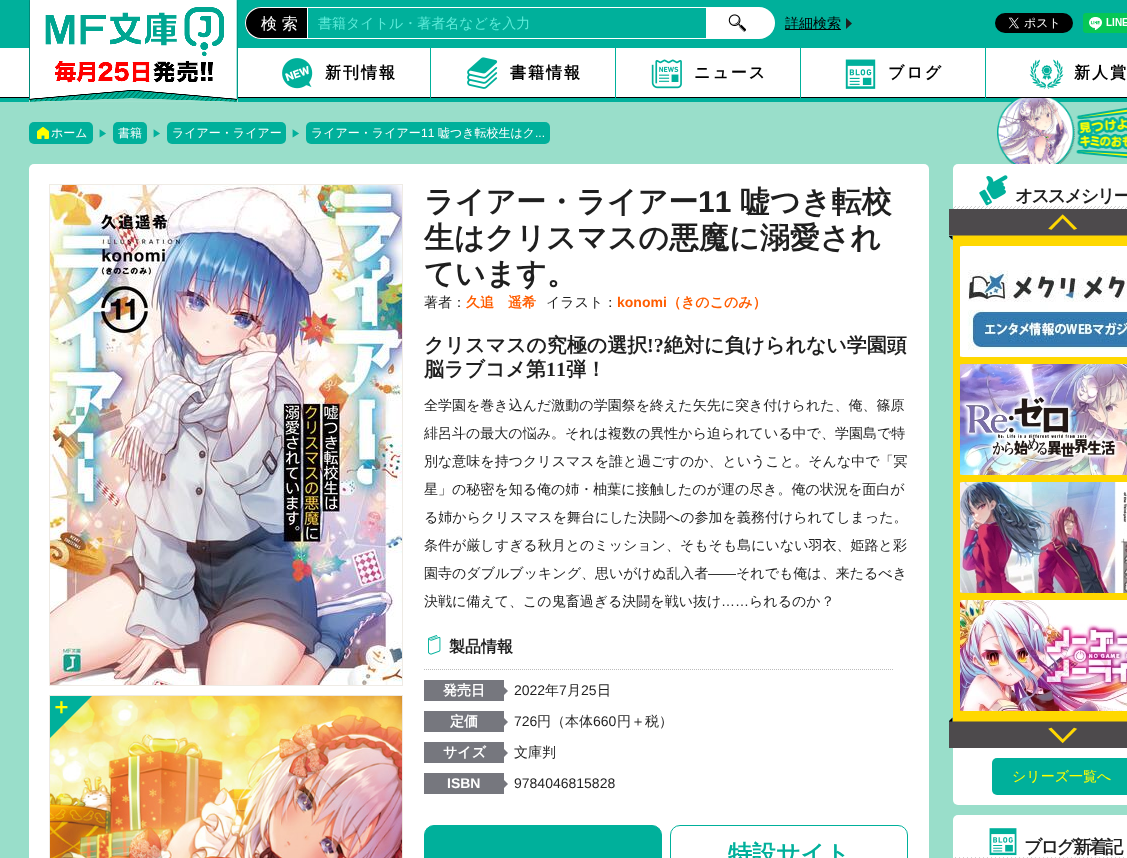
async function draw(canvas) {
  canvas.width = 1127;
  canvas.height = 858;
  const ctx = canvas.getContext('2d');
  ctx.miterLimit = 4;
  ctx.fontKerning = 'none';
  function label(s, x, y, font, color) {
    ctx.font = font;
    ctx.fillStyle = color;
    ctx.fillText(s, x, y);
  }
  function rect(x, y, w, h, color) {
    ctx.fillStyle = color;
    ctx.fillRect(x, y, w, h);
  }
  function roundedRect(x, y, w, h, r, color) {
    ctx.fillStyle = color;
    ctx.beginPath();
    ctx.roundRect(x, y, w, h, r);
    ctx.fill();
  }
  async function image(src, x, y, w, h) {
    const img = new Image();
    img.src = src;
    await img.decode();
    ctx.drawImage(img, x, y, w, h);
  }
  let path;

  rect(0, 0, 1127, 858, '#99deca');
  rect(0, 0, 1127, 102, '#00b09b');
  rect(0, 48, 1127, 49, '#fff');
  rect(0, 97, 1127, 1, '#000');
  await image('assets/img1.png', 29, 0, 209, 102);
  ctx.beginPath();
  ctx.roundRect(245, 7, 62, 32, [16, 0, 0, 16]);
  ctx.fill();
  ctx.fillStyle = '#fff';
  path = new Path2D('M261 7H307V39H261C252 39 245 32 245 23C245 14 252 7 261 7ZM261 8H307V38H261C253 38 246 31 246 23C246 15 253 8 261 8Z');
  ctx.fill(path, 'evenodd');
  label('検 索', 261, 29, '500 16px WenQuanYi Zen Hei', '#fff');
  ctx.strokeStyle = '#fff';
  ctx.strokeRect(307.5, 7.5, 399, 31);
  label('書籍タイトル・著者名などを入力', 318, 28, '500 14px WenQuanYi Zen Hei', '#5debda');
  ctx.fillStyle = '#fff';
  ctx.beginPath();
  ctx.roundRect(707, 7, 68, 32, [0, 16, 16, 0]);
  ctx.fill();
  await image('assets/img2.png', 728, 14, 18, 18);
  ctx.fillStyle = '#1f1f1f';
  path = new Path2D('M852 23.5L846 29V18Z');
  ctx.fill(path);
  rect(785, 29, 56, 1, '#000');
  label('詳細検索', 785, 28, '500 14px WenQuanYi Zen Hei', '#000');
  await image('assets/img3.png', 995, 13, 78, 20);
  await image('assets/img4.png', 1083, 13, 44, 20);
  await image('assets/img5.png', 997, 98, 78, 66);
  await image('assets/img6.png', 1076, 107, 51, 52);
  rect(430, 48, 1, 50, '#00b09b');
  await image('assets/img7.png', 282, 58, 31, 31);
  ctx.letterSpacing = '2px';
  label('新刊情報', 325, 78, 'bold 16px WenQuanYi Zen Hei', '#000');
  rect(615, 48, 1, 50, '#00b09b');
  await image('assets/img8.png', 467, 57, 31, 32);
  label('書籍情報', 510, 78, 'bold 16px WenQuanYi Zen Hei', '#000');
  rect(800, 48, 1, 50, '#00b09b');
  await image('assets/img9.png', 651, 59, 31, 30);
  label('ニュース', 694, 78, 'bold 16px WenQuanYi Zen Hei', '#000');
  rect(985, 48, 1, 50, '#00b09b');
  await image('assets/img10.png', 845, 59, 31, 30);
  label('ブログ', 888, 78, 'bold 16px WenQuanYi Zen Hei', '#000');
  await image('assets/img11.png', 1029, 59, 35, 30);
  label('新人賞', 1074, 78, 'bold 16px WenQuanYi Zen Hei', '#000');
  roundedRect(29, 122, 64, 22, 5, '#00b09b');
  await image('assets/img12.png', 37, 127, 12, 12);
  ctx.letterSpacing = '0px';
  label('ホーム', 51, 137, '500 12px WenQuanYi Zen Hei', '#fff');
  label('▶︎', 98, 137, '500 10px WenQuanYi Zen Hei', '#00b09b');
  roundedRect(113, 122, 34, 22, 5, '#00b09b');
  label('書籍', 118, 137, '500 12px WenQuanYi Zen Hei', '#fff');
  label('▶︎', 152, 137, '500 10px WenQuanYi Zen Hei', '#00b09b');
  roundedRect(167, 122, 119, 22, 5, '#00b09b');
  label('ライアー・ライアー', 172, 137, '500 12px WenQuanYi Zen Hei', '#fff');
  label('▶︎', 291, 137, '500 10px WenQuanYi Zen Hei', '#00b09b');
  roundedRect(306, 122, 244, 22, 5, '#00b09b');
  label('ライアー・ライアー', 311, 137, '500 12px WenQuanYi Zen Hei', '#fff');
  label('11', 421, 137, '12px Liberation Sans', '#fff');
  label('嘘つき転校生はク', 438, 137, '500 12px WenQuanYi Zen Hei', '#fff');
  label('...', 535, 137, '12px Liberation Sans', '#fff');
  roundedRect(29, 164, 900, 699, 5, '#fff');
  ctx.strokeStyle = '#efebe5';
  ctx.strokeRect(49.5, 184.5, 353, 501);
  await image('assets/img13.png', 50, 185, 352, 500);
  label('ライアー・ライアー', 424, 212, 'bold 30px WenQuanYi Zen Hei', '#1f1f1f');
  label('11', 698, 212, 'bold 30px Liberation Sans', '#1f1f1f');
  label('嘘つき転校', 740, 212, 'bold 30px WenQuanYi Zen Hei', '#1f1f1f');
  label('生はクリスマスの悪魔に溺愛され', 424, 248, 'bold 30px WenQuanYi Zen Hei', '#1f1f1f');
  label('ています。', 424, 284, 'bold 30px WenQuanYi Zen Hei', '#1f1f1f');
  label('著者：', 424, 307, '500 14px WenQuanYi Zen Hei', '#1f1f1f');
  label('久追　遥希', 466, 307, 'bold 14px WenQuanYi Zen Hei', '#ff5d00');
  label('イラスト：', 546, 307, '500 14px WenQuanYi Zen Hei', '#1f1f1f');
  label('konomi', 617, 307, 'bold 14px Liberation Sans', '#ff5d00');
  label('（きのこのみ）', 667, 307, 'bold 14px WenQuanYi Zen Hei', '#ff5d00');
  label('クリスマスの究極の選択', 424, 352, 'bold 20px WenQuanYi Zen Hei', '#1f1f1f');
  label('!?', 647, 352, 'bold 20px Liberation Serif', '#1f1f1f');
  label('絶対に負けられない学園頭', 664, 352, 'bold 20px WenQuanYi Zen Hei', '#1f1f1f');
  label('脳ラブコメ第', 424, 376, 'bold 20px WenQuanYi Zen Hei', '#1f1f1f');
  label('11', 546, 376, 'bold 20px Liberation Serif', '#1f1f1f');
  label('弾！', 566, 376, 'bold 20px WenQuanYi Zen Hei', '#1f1f1f');
  label('全学園を巻き込んだ激動の学園祭を終えた矢先に突き付けられた、俺、篠原', 424, 410, '500 14px WenQuanYi Zen Hei', '#1f1f1f');
  label('緋呂斗の最大の悩み。それは複数の異性から迫られている中で、学園島で特', 424, 438, '500 14px WenQuanYi Zen Hei', '#1f1f1f');
  label('別な意味を持つクリスマスを誰と過ごすのか、ということ。そんな中で「冥', 424, 466, '500 14px WenQuanYi Zen Hei', '#1f1f1f');
  label('星」の秘密を知る俺の姉・柚葉に接触したのが運の尽き。俺の状況を面白が', 424, 494, '500 14px WenQuanYi Zen Hei', '#1f1f1f');
  label('る姉からクリスマスを舞台にした決闘への参加を義務付けられてしまった。', 424, 522, '500 14px WenQuanYi Zen Hei', '#1f1f1f');
  label('条件が厳しすぎる秋月とのミッション、そもそも島にいない羽衣、姫路と彩', 424, 550, '500 14px WenQuanYi Zen Hei', '#1f1f1f');
  label('園寺のダブルブッキング、思いがけぬ乱入者', 424, 578, '500 14px WenQuanYi Zen Hei', '#1f1f1f');
  label('――', 708, 578, '14px Liberation Sans', '#1f1f1f');
  label('それでも俺は、来たるべき', 736, 578, '500 14px WenQuanYi Zen Hei', '#1f1f1f');
  label('決戦に備えて、この鬼畜過ぎる決闘を戦い抜け', 424, 606, '500 14px WenQuanYi Zen Hei', '#1f1f1f');
  label('……', 721, 606, '14px Liberation Sans', '#1f1f1f');
  label('られるのか？', 749, 606, '500 14px WenQuanYi Zen Hei', '#1f1f1f');
  ctx.strokeRect(49.5, 695.5, 353, 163);
  await image('assets/img14.png', 50, 696, 352, 162);
  ctx.save();
  ctx.beginPath();
  ctx.rect(50, 696, 352, 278);
  ctx.clip();
  ctx.fillStyle = '#00b09b';
  path = new Path2D('M8 696L50 654L92 696L50 738Z');
  ctx.fill(path);
  ctx.restore();
  ctx.font = 'bold 20px Liberation Sans';
  ctx.fillStyle = '#ff0';
  ctx.save();
  ctx.translate(62, 716);
  ctx.rotate(-45 * Math.PI / 180);
  ctx.fillText('×', 0, 0);
  ctx.restore();
  path = new Path2D('M424 669.5H894');
  ctx.strokeStyle = '#bcbcbc';
  ctx.setLineDash([1, 1]);
  ctx.stroke(path);
  await image('assets/img15.png', 428, 635, 13, 20);
  label('製品情報', 449, 652, 'bold 16px WenQuanYi Zen Hei', '#1f1f1f');
  rect(424, 680, 80, 21, '#76777e');
  label('発売日', 443, 695, 'bold 14px WenQuanYi Zen Hei', '#fff');
  ctx.fillStyle = '#76777e';
  path = new Path2D('M504 695V687L508 691Z');
  ctx.fill(path);
  label('2022', 514, 695, '14px Liberation Sans', '#1f1f1f');
  label('年', 545, 695, '500 14px WenQuanYi Zen Hei', '#1f1f1f');
  label('7', 559, 695, '14px Liberation Sans', '#1f1f1f');
  label('月', 567, 695, '500 14px WenQuanYi Zen Hei', '#1f1f1f');
  label('25', 581, 695, '14px Liberation Sans', '#1f1f1f');
  label('日', 597, 695, '500 14px WenQuanYi Zen Hei', '#1f1f1f');
  rect(424, 711, 80, 21, '#76777e');
  label('定価', 450, 726, 'bold 14px WenQuanYi Zen Hei', '#fff');
  ctx.fillStyle = '#76777e';
  path = new Path2D('M504 726V718L508 722Z');
  ctx.fill(path);
  label('726', 514, 726, '14px Liberation Sans', '#1f1f1f');
  label('円（本体', 537, 726, '500 14px WenQuanYi Zen Hei', '#1f1f1f');
  label('660', 593, 726, '14px Liberation Sans', '#1f1f1f');
  label('円＋税）', 617, 726, '500 14px WenQuanYi Zen Hei', '#1f1f1f');
  rect(424, 742, 80, 21, '#76777e');
  label('サイズ', 443, 757, 'bold 14px WenQuanYi Zen Hei', '#fff');
  ctx.fillStyle = '#76777e';
  path = new Path2D('M504 757V749L508 753Z');
  ctx.fill(path);
  label('文庫判', 514, 757, '500 14px WenQuanYi Zen Hei', '#1f1f1f');
  rect(424, 773, 80, 21, '#76777e');
  label('ISBN', 447, 788, 'bold 14px Liberation Sans', '#fff');
  ctx.fillStyle = '#76777e';
  path = new Path2D('M504 788V780L508 784Z');
  ctx.fill(path);
  label('9784046815828', 514, 788, '14px Liberation Sans', '#1f1f1f');
  ctx.fillStyle = '#00b09b';
  ctx.beginPath();
  ctx.roundRect(424.5, 825.5, 237, 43, 9.5);
  ctx.fill();
  ctx.strokeStyle = '#00b09b';
  ctx.setLineDash([]);
  ctx.stroke();
  ctx.beginPath();
  ctx.roundRect(670.5, 825.5, 237, 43, 9.5);
  ctx.stroke();
  label('特設サイト', 728, 862, 'bold 24px WenQuanYi Zen Hei', '#00b09b');
  roundedRect(953, 164, 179, 641, 5, '#fff');
  await image('assets/img16.png', 953, 206, 174, 3);
  await image('assets/img17.png', 979, 175, 29, 31);
  ctx.letterSpacing = '-2px';
  label('オススメシリー', 1015, 202, 'bold 18px WenQuanYi Zen Hei', '#1f1f1f');
  rect(953, 235, 174, 487, '#ffd800');
  await image('assets/img18.png', 949, 209, 178, 31);
  await image('assets/img19.png', 960, 246, 167, 111);
  await image('assets/img20.png', 960, 364, 167, 111);
  await image('assets/img21.png', 960, 482, 167, 111);
  await image('assets/img22.png', 960, 600, 167, 111);
  await image('assets/img23.png', 949, 717, 178, 31);
  roundedRect(992, 758, 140, 37, 5, '#00b09b');
  ctx.letterSpacing = '0px';
  label('シリーズ一覧へ', 1012, 781, '500 14px WenQuanYi Zen Hei', '#ff0');
  roundedRect(953, 815, 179, 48, 5, '#fff');
  await image('assets/img24.png', 955, 857, 169, 1);
  await image('assets/img25.png', 989, 828, 28, 28);
  ctx.letterSpacing = '-2px';
  label('ブログ新着記', 1024, 853, 'bold 18px WenQuanYi Zen Hei', '#1f1f1f');
}

draw(document.querySelector('canvas'));
